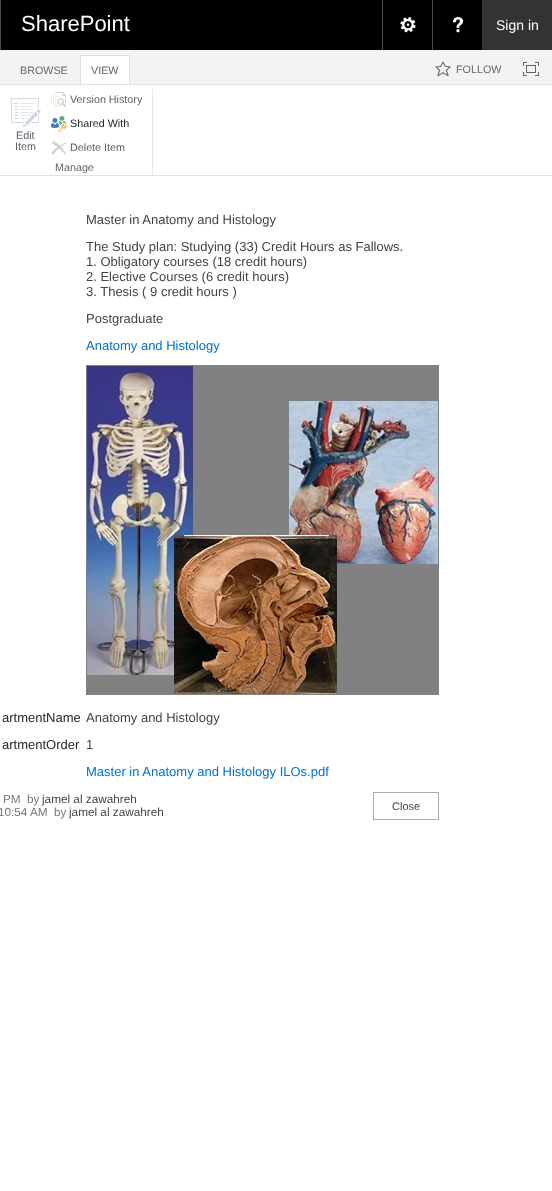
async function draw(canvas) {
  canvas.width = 552;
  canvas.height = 1191;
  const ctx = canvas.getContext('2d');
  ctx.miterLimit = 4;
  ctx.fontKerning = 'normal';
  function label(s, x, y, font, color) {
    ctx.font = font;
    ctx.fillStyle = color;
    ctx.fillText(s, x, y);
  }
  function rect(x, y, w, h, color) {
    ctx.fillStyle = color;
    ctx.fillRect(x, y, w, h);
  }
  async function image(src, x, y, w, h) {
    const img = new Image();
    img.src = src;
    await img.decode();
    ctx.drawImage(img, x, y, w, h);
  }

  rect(0, 0, 552, 1191, '#fff');
  rect(1, 0, 481, 50, '#000');
  rect(0, 0, 1, 50, '#4d4d4d');
  label('SharePoint', 21, 31, '22px Liberation Sans', '#fff');
  rect(382, 0, 1, 50, '#4d4d4d');
  await image('assets/img1.png', 400, 17, 16, 16);
  rect(432, 0, 1, 50, '#4d4d4d');
  await image('assets/img2.png', 452, 17, 12, 16);
  rect(482, 0, 70, 50, '#333');
  label('Sign in', 496, 30, '14px Liberation Sans', '#fff');
  rect(0, 50, 552, 34, '#f3f3f3');
  rect(0, 84, 552, 1, '#e1e1e1');
  label('BROWSE', 20, 74, '10.75px Liberation Sans', '#666');
  rect(81, 56, 48, 28, '#fff');
  rect(80, 55, 50, 1, '#e1e1e1');
  rect(129, 55, 1, 29, '#e1e1e1');
  rect(80, 55, 1, 29, '#e1e1e1');
  label('VIEW', 91, 74, '10.75px Liberation Sans', '#666');
  await image('assets/img3.png', 435, 61, 16, 16);
  label('FOLLOW', 456, 73, '10.75px Liberation Sans', '#666');
  await image('assets/img4.png', 523, 62, 16, 14);
  rect(0, 175, 552, 1, '#e1e1e1');
  await image('assets/img5.png', 11, 98, 30, 29);
  label('Edit', 16, 139, '10.75px Liberation Sans', '#5b626c');
  label('Item', 15, 150, '10.75px Liberation Sans', '#5b626c');
  await image('assets/img6.png', 51, 92, 15, 15);
  label('Version History', 70, 103, '10.75px Liberation Sans', '#5b626c');
  await image('assets/img7.png', 51, 116, 16, 16);
  label('Shared With', 70, 127, '10.75px Liberation Sans', '#23272c');
  await image('assets/img8.png', 51, 141, 16, 14);
  label('Delete Item', 70, 151, '10.75px Liberation Sans', '#5b626c');
  label('Manage', 55, 171, '10.75px Liberation Sans', '#666');
  rect(152, 89, 1, 86, '#e7e7e8');
  label('Master in Anatomy and Histology', 86, 224, '13px Liberation Sans', '#444');
  label('The Study plan: Studying (33) Credit Hours as Fallows.', 86, 251, '13px Liberation Sans', '#444');
  label('1. Obligatory courses (18 credit hours)', 86, 266, '13px Liberation Sans', '#444');
  label('2. Elective Courses (6 credit hours)', 86, 281, '13px Liberation Sans', '#444');
  label('3. Thesis ( 9 credit hours )', 86, 296, '13px Liberation Sans', '#444');
  label('Postgraduate', 86, 323, '13px Liberation Sans', '#444');
  label('Anatomy and Histology', 86, 350, '13px Liberation Sans', '#0072c6');
  await image('assets/img9.png', 86, 365, 353, 330);
  label('artmentName', 2, 722, '13px Liberation Sans', '#262626');
  label('Anatomy and Histology', 86, 722, '13px Liberation Sans', '#444');
  label('artmentOrder', 2, 749, '13px Liberation Sans', '#262626');
  label('1', 86, 749, '13px Liberation Sans', '#444');
  label('Master in Anatomy and Histology ILOs.pdf', 86, 776, '13px Liberation Sans', '#0072c6');
  label('PM', 3, 803, '11.75px Liberation Sans', '#777');
  label('by', 27, 803, '11.75px Liberation Sans', '#777');
  label('jamel al zawahreh', 42, 803, '11.75px Liberation Sans', '#444');
  label('10:54 AM', -2, 816, '11.75px Liberation Sans', '#777');
  label('by', 54, 816, '11.75px Liberation Sans', '#777');
  label('jamel al zawahreh', 69, 816, '11.75px Liberation Sans', '#444');
  ctx.strokeStyle = '#ababab';
  ctx.strokeRect(373.5, 792.5, 65, 27);
  label('Close', 392, 810, '11px Liberation Sans', '#444');
}

draw(document.querySelector('canvas'));
